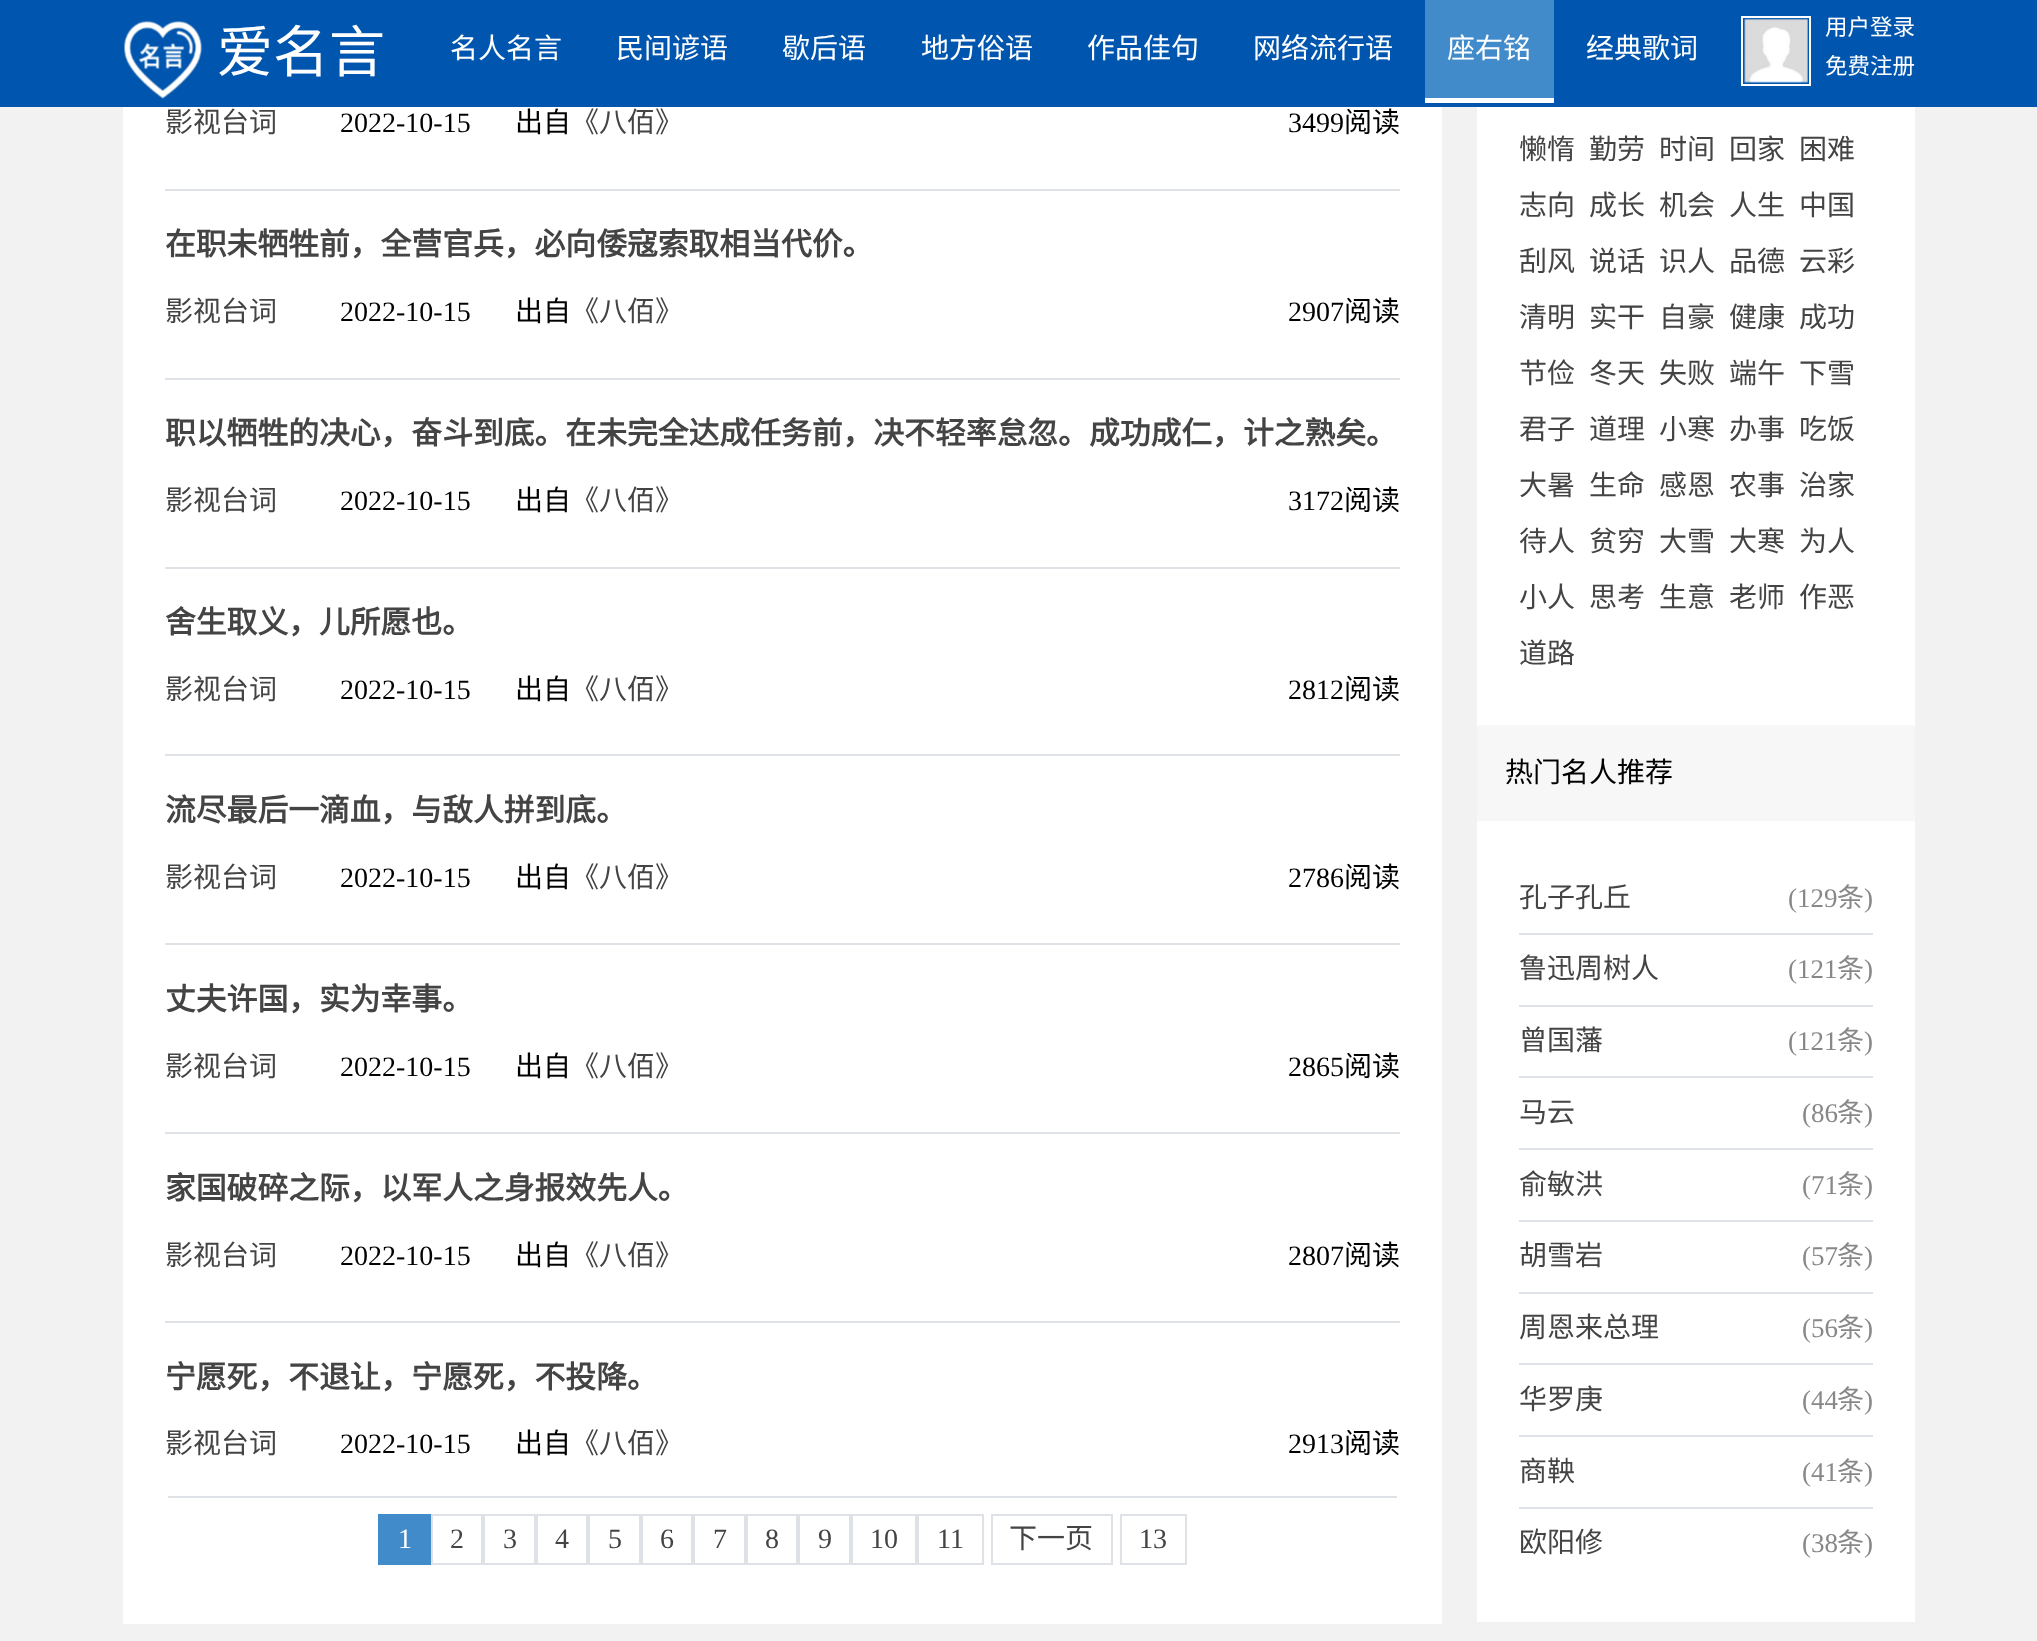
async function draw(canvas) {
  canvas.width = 2037;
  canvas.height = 1641;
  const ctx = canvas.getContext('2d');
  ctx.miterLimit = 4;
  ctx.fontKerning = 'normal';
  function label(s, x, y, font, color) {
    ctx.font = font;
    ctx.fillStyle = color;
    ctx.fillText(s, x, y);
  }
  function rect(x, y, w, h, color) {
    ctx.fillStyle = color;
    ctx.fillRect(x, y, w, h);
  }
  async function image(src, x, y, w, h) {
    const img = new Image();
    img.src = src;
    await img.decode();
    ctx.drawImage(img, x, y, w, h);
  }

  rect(0, 0, 2037, 1641, '#f2f2f2');
  rect(0, 0, 2037, 107, '#0056af');
  await image('assets/img1.png', 124, 21, 78, 78);
  label('爱名言', 217, 72, '56px Noto Sans CJK SC', '#fff');
  label('名人名言', 450, 58, '28px Noto Sans CJK SC', '#fff');
  label('民间谚语', 616, 58, '28px Noto Sans CJK SC', '#fff');
  label('歇后语', 782, 58, '28px Noto Sans CJK SC', '#fff');
  label('地方俗语', 921, 58, '28px Noto Sans CJK SC', '#fff');
  label('作品佳句', 1087, 58, '28px Noto Sans CJK SC', '#fff');
  label('网络流行语', 1253, 58, '28px Noto Sans CJK SC', '#fff');
  rect(1425, 0, 129, 98, '#428bca');
  rect(1425, 98, 129, 5, '#fff');
  label('座右铭', 1447, 58, '28px Noto Sans CJK SC', '#fff');
  label('经典歌词', 1586, 58, '28px Noto Sans CJK SC', '#fff');
  ctx.strokeStyle = '#fff';
  ctx.lineWidth = 2;
  ctx.strokeRect(1742, 17, 68, 68);
  await image('assets/img2.png', 1744, 18, 64, 65);
  label('用户登录', 1825, 35, '22.5px Noto Sans CJK SC', '#fff');
  label('免费注册', 1825, 74, '22.5px Noto Sans CJK SC', '#fff');
  rect(123, 107, 1319, 1517, '#fff');
  label('影视台词', 165, 132, '28px Noto Sans CJK SC', '#444');
  label('2022-10-15', 340, 132, '28px Liberation Serif', '#000');
  label('出自', 515, 132, '28px Noto Sans CJK SC', '#000');
  label('《八佰》', 571, 132, '28px Noto Sans CJK SC', '#444');
  label('3499', 1288, 132, '28px Liberation Serif', '#000');
  label('阅读', 1344, 132, '28px Noto Sans CJK SC', '#000');
  rect(165, 189, 1235, 2, '#dee2e6');
  label('在职未牺牲前，全营官兵，必向倭寇索取相当代价。', 165, 255, 'bold 30.8px Noto Sans CJK SC', '#444');
  label('影视台词', 165, 321, '28px Noto Sans CJK SC', '#444');
  label('2022-10-15', 340, 321, '28px Liberation Serif', '#000');
  label('出自', 515, 321, '28px Noto Sans CJK SC', '#000');
  label('《八佰》', 571, 321, '28px Noto Sans CJK SC', '#444');
  label('2907', 1288, 321, '28px Liberation Serif', '#000');
  label('阅读', 1344, 321, '28px Noto Sans CJK SC', '#000');
  rect(165, 378, 1235, 2, '#dee2e6');
  label('职以牺牲的决心，奋斗到底。在未完全达成任务前，决不轻率怠忽。成功成仁，计之熟矣。', 165, 444, 'bold 30.8px Noto Sans CJK SC', '#444');
  label('影视台词', 165, 510, '28px Noto Sans CJK SC', '#444');
  label('2022-10-15', 340, 510, '28px Liberation Serif', '#000');
  label('出自', 515, 510, '28px Noto Sans CJK SC', '#000');
  label('《八佰》', 571, 510, '28px Noto Sans CJK SC', '#444');
  label('3172', 1288, 510, '28px Liberation Serif', '#000');
  label('阅读', 1344, 510, '28px Noto Sans CJK SC', '#000');
  rect(165, 567, 1235, 2, '#dee2e6');
  label('舍生取义，儿所愿也。', 165, 633, 'bold 30.8px Noto Sans CJK SC', '#444');
  label('影视台词', 165, 699, '28px Noto Sans CJK SC', '#444');
  label('2022-10-15', 340, 699, '28px Liberation Serif', '#000');
  label('出自', 515, 699, '28px Noto Sans CJK SC', '#000');
  label('《八佰》', 571, 699, '28px Noto Sans CJK SC', '#444');
  label('2812', 1288, 699, '28px Liberation Serif', '#000');
  label('阅读', 1344, 699, '28px Noto Sans CJK SC', '#000');
  rect(165, 754, 1235, 2, '#dee2e6');
  label('流尽最后一滴血，与敌人拼到底。', 165, 821, 'bold 30.8px Noto Sans CJK SC', '#444');
  label('影视台词', 165, 887, '28px Noto Sans CJK SC', '#444');
  label('2022-10-15', 340, 887, '28px Liberation Serif', '#000');
  label('出自', 515, 887, '28px Noto Sans CJK SC', '#000');
  label('《八佰》', 571, 887, '28px Noto Sans CJK SC', '#444');
  label('2786', 1288, 887, '28px Liberation Serif', '#000');
  label('阅读', 1344, 887, '28px Noto Sans CJK SC', '#000');
  rect(165, 943, 1235, 2, '#dee2e6');
  label('丈夫许国，实为幸事。', 165, 1010, 'bold 30.8px Noto Sans CJK SC', '#444');
  label('影视台词', 165, 1076, '28px Noto Sans CJK SC', '#444');
  label('2022-10-15', 340, 1076, '28px Liberation Serif', '#000');
  label('出自', 515, 1076, '28px Noto Sans CJK SC', '#000');
  label('《八佰》', 571, 1076, '28px Noto Sans CJK SC', '#444');
  label('2865', 1288, 1076, '28px Liberation Serif', '#000');
  label('阅读', 1344, 1076, '28px Noto Sans CJK SC', '#000');
  rect(165, 1132, 1235, 2, '#dee2e6');
  label('家国破碎之际，以军人之身报效先人。', 165, 1199, 'bold 30.8px Noto Sans CJK SC', '#444');
  label('影视台词', 165, 1265, '28px Noto Sans CJK SC', '#444');
  label('2022-10-15', 340, 1265, '28px Liberation Serif', '#000');
  label('出自', 515, 1265, '28px Noto Sans CJK SC', '#000');
  label('《八佰》', 571, 1265, '28px Noto Sans CJK SC', '#444');
  label('2807', 1288, 1265, '28px Liberation Serif', '#000');
  label('阅读', 1344, 1265, '28px Noto Sans CJK SC', '#000');
  rect(165, 1321, 1235, 2, '#dee2e6');
  label('宁愿死，不退让，宁愿死，不投降。', 165, 1388, 'bold 30.8px Noto Sans CJK SC', '#444');
  label('影视台词', 165, 1453, '28px Noto Sans CJK SC', '#444');
  label('2022-10-15', 340, 1453, '28px Liberation Serif', '#000');
  label('出自', 515, 1453, '28px Noto Sans CJK SC', '#000');
  label('《八佰》', 571, 1453, '28px Noto Sans CJK SC', '#444');
  label('2913', 1288, 1453, '28px Liberation Serif', '#000');
  label('阅读', 1344, 1453, '28px Noto Sans CJK SC', '#000');
  rect(168, 1496, 1229, 2, '#dee2e6');
  rect(378, 1514, 53, 51, '#428bca');
  label('1', 398, 1548, '28px Liberation Serif', '#fff');
  ctx.strokeStyle = '#dee2e6';
  ctx.strokeRect(432, 1515, 50, 49);
  label('2', 450, 1548, '28px Liberation Serif', '#444');
  ctx.strokeRect(484, 1515, 51, 49);
  label('3', 503, 1548, '28px Liberation Serif', '#444');
  ctx.strokeRect(537, 1515, 50, 49);
  label('4', 555, 1548, '28px Liberation Serif', '#444');
  ctx.strokeRect(589, 1515, 51, 49);
  label('5', 608, 1548, '28px Liberation Serif', '#444');
  ctx.strokeRect(642, 1515, 50, 49);
  label('6', 660, 1548, '28px Liberation Serif', '#444');
  ctx.strokeRect(694, 1515, 51, 49);
  label('7', 713, 1548, '28px Liberation Serif', '#444');
  ctx.strokeRect(747, 1515, 50, 49);
  label('8', 765, 1548, '28px Liberation Serif', '#444');
  ctx.strokeRect(799, 1515, 51, 49);
  label('9', 818, 1548, '28px Liberation Serif', '#444');
  ctx.strokeRect(852, 1515, 64, 49);
  label('10', 870, 1548, '28px Liberation Serif', '#444');
  ctx.strokeRect(918, 1515, 65, 49);
  label('11', 937, 1548, '28px Liberation Serif', '#444');
  ctx.strokeRect(992, 1515, 120, 49);
  label('下一页', 1009, 1548, '28px Noto Sans CJK SC', '#444');
  ctx.strokeRect(1121, 1515, 65, 49);
  label('13', 1139, 1548, '28px Liberation Serif', '#444');
  rect(1477, 107, 438, 1515, '#fff');
  label('懒惰', 1519, 159, '28px Noto Sans CJK SC', '#444');
  label('勤劳', 1589, 159, '28px Noto Sans CJK SC', '#444');
  label('时间', 1659, 159, '28px Noto Sans CJK SC', '#444');
  label('回家', 1729, 159, '28px Noto Sans CJK SC', '#444');
  label('困难', 1799, 159, '28px Noto Sans CJK SC', '#444');
  label('志向', 1519, 215, '28px Noto Sans CJK SC', '#444');
  label('成长', 1589, 215, '28px Noto Sans CJK SC', '#444');
  label('机会', 1659, 215, '28px Noto Sans CJK SC', '#444');
  label('人生', 1729, 215, '28px Noto Sans CJK SC', '#444');
  label('中国', 1799, 215, '28px Noto Sans CJK SC', '#444');
  label('刮风', 1519, 271, '28px Noto Sans CJK SC', '#444');
  label('说话', 1589, 271, '28px Noto Sans CJK SC', '#444');
  label('识人', 1659, 271, '28px Noto Sans CJK SC', '#444');
  label('品德', 1729, 271, '28px Noto Sans CJK SC', '#444');
  label('云彩', 1799, 271, '28px Noto Sans CJK SC', '#444');
  label('清明', 1519, 327, '28px Noto Sans CJK SC', '#444');
  label('实干', 1589, 327, '28px Noto Sans CJK SC', '#444');
  label('自豪', 1659, 327, '28px Noto Sans CJK SC', '#444');
  label('健康', 1729, 327, '28px Noto Sans CJK SC', '#444');
  label('成功', 1799, 327, '28px Noto Sans CJK SC', '#444');
  label('节俭', 1519, 383, '28px Noto Sans CJK SC', '#444');
  label('冬天', 1589, 383, '28px Noto Sans CJK SC', '#444');
  label('失败', 1659, 383, '28px Noto Sans CJK SC', '#444');
  label('端午', 1729, 383, '28px Noto Sans CJK SC', '#444');
  label('下雪', 1799, 383, '28px Noto Sans CJK SC', '#444');
  label('君子', 1519, 439, '28px Noto Sans CJK SC', '#444');
  label('道理', 1589, 439, '28px Noto Sans CJK SC', '#444');
  label('小寒', 1659, 439, '28px Noto Sans CJK SC', '#444');
  label('办事', 1729, 439, '28px Noto Sans CJK SC', '#444');
  label('吃饭', 1799, 439, '28px Noto Sans CJK SC', '#444');
  label('大暑', 1519, 495, '28px Noto Sans CJK SC', '#444');
  label('生命', 1589, 495, '28px Noto Sans CJK SC', '#444');
  label('感恩', 1659, 495, '28px Noto Sans CJK SC', '#444');
  label('农事', 1729, 495, '28px Noto Sans CJK SC', '#444');
  label('治家', 1799, 495, '28px Noto Sans CJK SC', '#444');
  label('待人', 1519, 551, '28px Noto Sans CJK SC', '#444');
  label('贫穷', 1589, 551, '28px Noto Sans CJK SC', '#444');
  label('大雪', 1659, 551, '28px Noto Sans CJK SC', '#444');
  label('大寒', 1729, 551, '28px Noto Sans CJK SC', '#444');
  label('为人', 1799, 551, '28px Noto Sans CJK SC', '#444');
  label('小人', 1519, 607, '28px Noto Sans CJK SC', '#444');
  label('思考', 1589, 607, '28px Noto Sans CJK SC', '#444');
  label('生意', 1659, 607, '28px Noto Sans CJK SC', '#444');
  label('老师', 1729, 607, '28px Noto Sans CJK SC', '#444');
  label('作恶', 1799, 607, '28px Noto Sans CJK SC', '#444');
  label('道路', 1519, 663, '28px Noto Sans CJK SC', '#444');
  rect(1477, 725, 438, 96, '#f7f7f7');
  label('热门名人推荐', 1505, 782, '28px Noto Sans CJK SC', '#000');
  label('孔子孔丘', 1519, 907, '28px Noto Sans CJK SC', '#444');
  label('(129', 1788, 907, '27px Liberation Serif', '#888');
  label('条', 1837, 907, '27px Noto Sans CJK SC', '#888');
  label(')', 1864, 907, '27px Liberation Serif', '#888');
  rect(1519, 933, 354, 2, '#dee2e6');
  label('鲁迅周树人', 1519, 978, '28px Noto Sans CJK SC', '#444');
  label('(121', 1788, 978, '27px Liberation Serif', '#888');
  label('条', 1837, 978, '27px Noto Sans CJK SC', '#888');
  label(')', 1864, 978, '27px Liberation Serif', '#888');
  rect(1519, 1005, 354, 2, '#dee2e6');
  label('曾国藩', 1519, 1050, '28px Noto Sans CJK SC', '#444');
  label('(121', 1788, 1050, '27px Liberation Serif', '#888');
  label('条', 1837, 1050, '27px Noto Sans CJK SC', '#888');
  label(')', 1864, 1050, '27px Liberation Serif', '#888');
  rect(1519, 1076, 354, 2, '#dee2e6');
  label('马云', 1519, 1122, '28px Noto Sans CJK SC', '#444');
  label('(86', 1802, 1122, '27px Liberation Serif', '#888');
  label('条', 1837, 1122, '27px Noto Sans CJK SC', '#888');
  label(')', 1864, 1122, '27px Liberation Serif', '#888');
  rect(1519, 1148, 354, 2, '#dee2e6');
  label('俞敏洪', 1519, 1194, '28px Noto Sans CJK SC', '#444');
  label('(71', 1802, 1194, '27px Liberation Serif', '#888');
  label('条', 1837, 1194, '27px Noto Sans CJK SC', '#888');
  label(')', 1864, 1194, '27px Liberation Serif', '#888');
  rect(1519, 1220, 354, 2, '#dee2e6');
  label('胡雪岩', 1519, 1265, '28px Noto Sans CJK SC', '#444');
  label('(57', 1802, 1265, '27px Liberation Serif', '#888');
  label('条', 1837, 1265, '27px Noto Sans CJK SC', '#888');
  label(')', 1864, 1265, '27px Liberation Serif', '#888');
  rect(1519, 1292, 354, 2, '#dee2e6');
  label('周恩来总理', 1519, 1337, '28px Noto Sans CJK SC', '#444');
  label('(56', 1802, 1337, '27px Liberation Serif', '#888');
  label('条', 1837, 1337, '27px Noto Sans CJK SC', '#888');
  label(')', 1864, 1337, '27px Liberation Serif', '#888');
  rect(1519, 1363, 354, 2, '#dee2e6');
  label('华罗庚', 1519, 1409, '28px Noto Sans CJK SC', '#444');
  label('(44', 1802, 1409, '27px Liberation Serif', '#888');
  label('条', 1837, 1409, '27px Noto Sans CJK SC', '#888');
  label(')', 1864, 1409, '27px Liberation Serif', '#888');
  rect(1519, 1435, 354, 2, '#dee2e6');
  label('商鞅', 1519, 1481, '28px Noto Sans CJK SC', '#444');
  label('(41', 1802, 1481, '27px Liberation Serif', '#888');
  label('条', 1837, 1481, '27px Noto Sans CJK SC', '#888');
  label(')', 1864, 1481, '27px Liberation Serif', '#888');
  rect(1519, 1507, 354, 2, '#dee2e6');
  label('欧阳修', 1519, 1552, '28px Noto Sans CJK SC', '#444');
  label('(38', 1802, 1552, '27px Liberation Serif', '#888');
  label('条', 1837, 1552, '27px Noto Sans CJK SC', '#888');
  label(')', 1864, 1552, '27px Liberation Serif', '#888');
}

draw(document.querySelector('canvas'));
